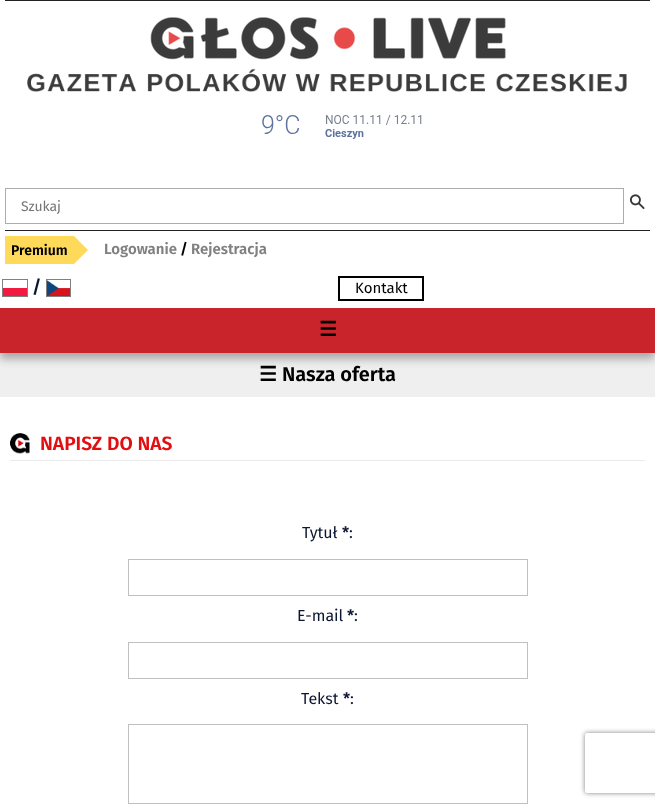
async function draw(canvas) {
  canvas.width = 655;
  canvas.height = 807;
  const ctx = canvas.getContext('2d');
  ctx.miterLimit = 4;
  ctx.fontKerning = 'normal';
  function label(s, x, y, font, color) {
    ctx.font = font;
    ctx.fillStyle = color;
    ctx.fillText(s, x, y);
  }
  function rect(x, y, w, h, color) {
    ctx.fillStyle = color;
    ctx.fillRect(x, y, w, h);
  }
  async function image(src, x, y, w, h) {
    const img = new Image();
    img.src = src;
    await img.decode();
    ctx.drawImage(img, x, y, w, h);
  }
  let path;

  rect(0, 0, 655, 807, '#fff');
  rect(0, 353, 655, 44, '#efefef');
  ctx.fillStyle = '#78787899';
  ctx.filter = 'blur(4px)';
  ctx.beginPath();
  ctx.rect(0, 314, 655, 45);
  ctx.fill();
  ctx.filter = 'none';
  rect(1, 307, 653, 1, '#fff');
  rect(5, 0, 645, 1, '#222');
  await image('assets/img1.png', 150, 17, 356, 43);
  await image('assets/img2.png', 27, 68, 600, 24);
  await image('assets/img3.png', 262, 115, 160, 24);
  ctx.strokeStyle = '#acacac';
  ctx.strokeRect(5.5, 188.5, 618, 35);
  label('Szukaj', 21, 211, '14px Fira Sans', '#757575');
  await image('assets/img4.png', 630, 194, 15, 15);
  rect(5, 230, 645, 1, '#222');
  rect(5, 236, 69, 28, '#fed95a');
  label('Premium', 11, 255, '600 14px Fira Sans', '#000');
  ctx.fillStyle = '#fed95a';
  path = new Path2D('M74 264V236L88 250Z');
  ctx.fill(path);
  label('Logowanie', 104, 254, '600 15px Fira Sans', '#808080');
  label('/', 180, 254, '600 15px Fira Sans', '#000');
  label('Rejestracja', 191, 254, '600 15px Fira Sans', '#808080');
  ctx.strokeStyle = '#808080';
  ctx.strokeRect(2.5, 279.5, 25, 17);
  label('/', 32, 293, '600 18px Fira Sans', '#0c1633');
  ctx.strokeRect(46.5, 279.5, 24, 17);
  rect(3, 288, 24, 8, '#f21a41');
  await image('assets/img5.png', 47, 280, 23, 16);
  ctx.strokeStyle = '#000';
  ctx.lineWidth = 2;
  ctx.strokeRect(339, 277, 84, 23);
  label('Kontakt', 355, 293, '15px Fira Sans', '#000');
  rect(0, 308, 655, 45, '#c9242c');
  label('☰', 319, 336, 'bold 20px DejaVu Sans', '#000');
  label('☰', 259, 381, 'bold 20px DejaVu Sans', '#000');
  label('Nasza oferta', 282, 381, '600 20px Fira Sans', '#000');
  await image('assets/img6.png', 10, 433, 20, 21);
  rect(10, 460, 635, 1, '#eaeaea');
  label('NAPISZ DO NAS', 40, 450, '600 19.25px Fira Sans', '#e30e10');
  label('Tytuł', 302, 538, '16px Fira Sans', '#0c1633');
  label('*', 342, 538, '600 16px Fira Sans', '#0c1633');
  label(':', 349, 538, '16px Fira Sans', '#0c1633');
  ctx.strokeStyle = '#c0c0c0';
  ctx.lineWidth = 1;
  ctx.strokeRect(128.5, 559.5, 399, 36);
  label('E-mail', 297, 621, '16px Fira Sans', '#0c1633');
  label('*', 347, 621, '600 16px Fira Sans', '#0c1633');
  label(':', 354, 621, '16px Fira Sans', '#0c1633');
  ctx.strokeRect(128.5, 642.5, 399, 36);
  label('Tekst', 301, 704, '16px Fira Sans', '#0c1633');
  label('*', 343, 704, '600 16px Fira Sans', '#0c1633');
  label(':', 350, 704, '16px Fira Sans', '#0c1633');
  ctx.strokeRect(128.5, 724.5, 399, 79);
  ctx.save();
  path = new Path2D('M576 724H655V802H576ZM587 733H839C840 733 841 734 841 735V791C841 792 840 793 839 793H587C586 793 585 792 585 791V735C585 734 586 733 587 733Z');
  ctx.clip(path, 'evenodd');
  ctx.fillStyle = '#808080';
  ctx.filter = 'blur(2.5px)';
  ctx.beginPath();
  ctx.roundRect(585, 733, 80, 60, 2);
  ctx.fill();
  ctx.filter = 'none';
  ctx.restore();
}

draw(document.querySelector('canvas'));
